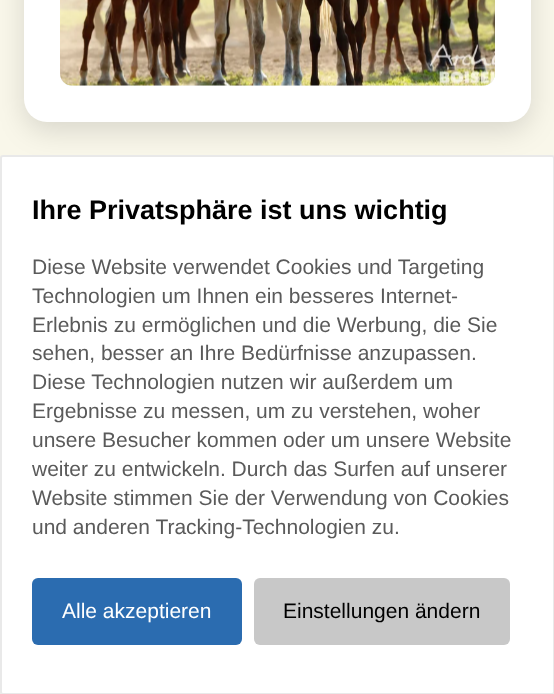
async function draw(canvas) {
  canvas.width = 554;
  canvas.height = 694;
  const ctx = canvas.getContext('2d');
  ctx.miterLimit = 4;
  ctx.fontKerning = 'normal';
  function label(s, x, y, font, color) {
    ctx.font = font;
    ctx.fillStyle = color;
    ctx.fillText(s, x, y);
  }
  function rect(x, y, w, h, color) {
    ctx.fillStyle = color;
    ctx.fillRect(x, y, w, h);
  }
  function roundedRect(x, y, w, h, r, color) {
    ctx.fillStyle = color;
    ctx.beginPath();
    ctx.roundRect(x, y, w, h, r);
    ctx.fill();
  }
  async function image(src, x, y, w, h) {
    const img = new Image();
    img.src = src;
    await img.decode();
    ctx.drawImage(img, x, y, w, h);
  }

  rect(0, 0, 554, 694, '#f9f7ea');
  ctx.fillStyle = '#00000021';
  ctx.filter = 'blur(14px)';
  ctx.beginPath();
  ctx.roundRect(24, -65, 507, 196, 23);
  ctx.fill();
  ctx.filter = 'none';
  roundedRect(24, -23, 507, 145, 23, '#fff');
  roundedRect(60, -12, 435, 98, 12, '#f1f1f1');
  await image('assets/img1.png', 60, 0, 435, 86);
  ctx.fillStyle = '#0000001a';
  ctx.filter = 'blur(19px)';
  ctx.beginPath();
  ctx.rect(8, 192, 540, 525);
  ctx.fill();
  ctx.filter = 'none';
  ctx.fillStyle = '#fff';
  ctx.beginPath();
  ctx.roundRect(1, 156, 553, 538, 2);
  ctx.fill();
  ctx.strokeStyle = '#e9e9e9';
  ctx.lineWidth = 2;
  ctx.stroke();
  label('Ihre Privatsphäre ist uns wichtig', 32, 219, 'bold 27px Liberation Sans', '#000');
  label('Diese Website verwendet Cookies und Targeting', 32, 274, '21px Liberation Sans', '#5a5a5a');
  label('Technologien um Ihnen ein besseres Internet-', 32, 303, '21px Liberation Sans', '#5a5a5a');
  label('Erlebnis zu ermöglichen und die Werbung, die Sie', 32, 332, '21px Liberation Sans', '#5a5a5a');
  label('sehen, besser an Ihre Bedürfnisse anzupassen.', 32, 360, '21px Liberation Sans', '#5a5a5a');
  label('Diese Technologien nutzen wir außerdem um', 32, 389, '21px Liberation Sans', '#5a5a5a');
  label('Ergebnisse zu messen, um zu verstehen, woher', 32, 418, '21px Liberation Sans', '#5a5a5a');
  label('unsere Besucher kommen oder um unsere Website', 32, 447, '21px Liberation Sans', '#5a5a5a');
  label('weiter zu entwickeln. Durch das Surfen auf unserer', 32, 476, '21px Liberation Sans', '#5a5a5a');
  label('Website stimmen Sie der Verwendung von Cookies', 32, 505, '21px Liberation Sans', '#5a5a5a');
  label('und anderen Tracking-Technologien zu.', 32, 534, '21px Liberation Sans', '#5a5a5a');
  roundedRect(32, 578, 210, 67, 6, '#2b6cb0');
  label('Alle akzeptieren', 62, 618, '21px Liberation Sans', '#fff');
  roundedRect(254, 578, 256, 67, 6, '#c8c8c8');
  label('Einstellungen ändern', 283, 618, '21px Liberation Sans', '#000');
}

draw(document.querySelector('canvas'));
